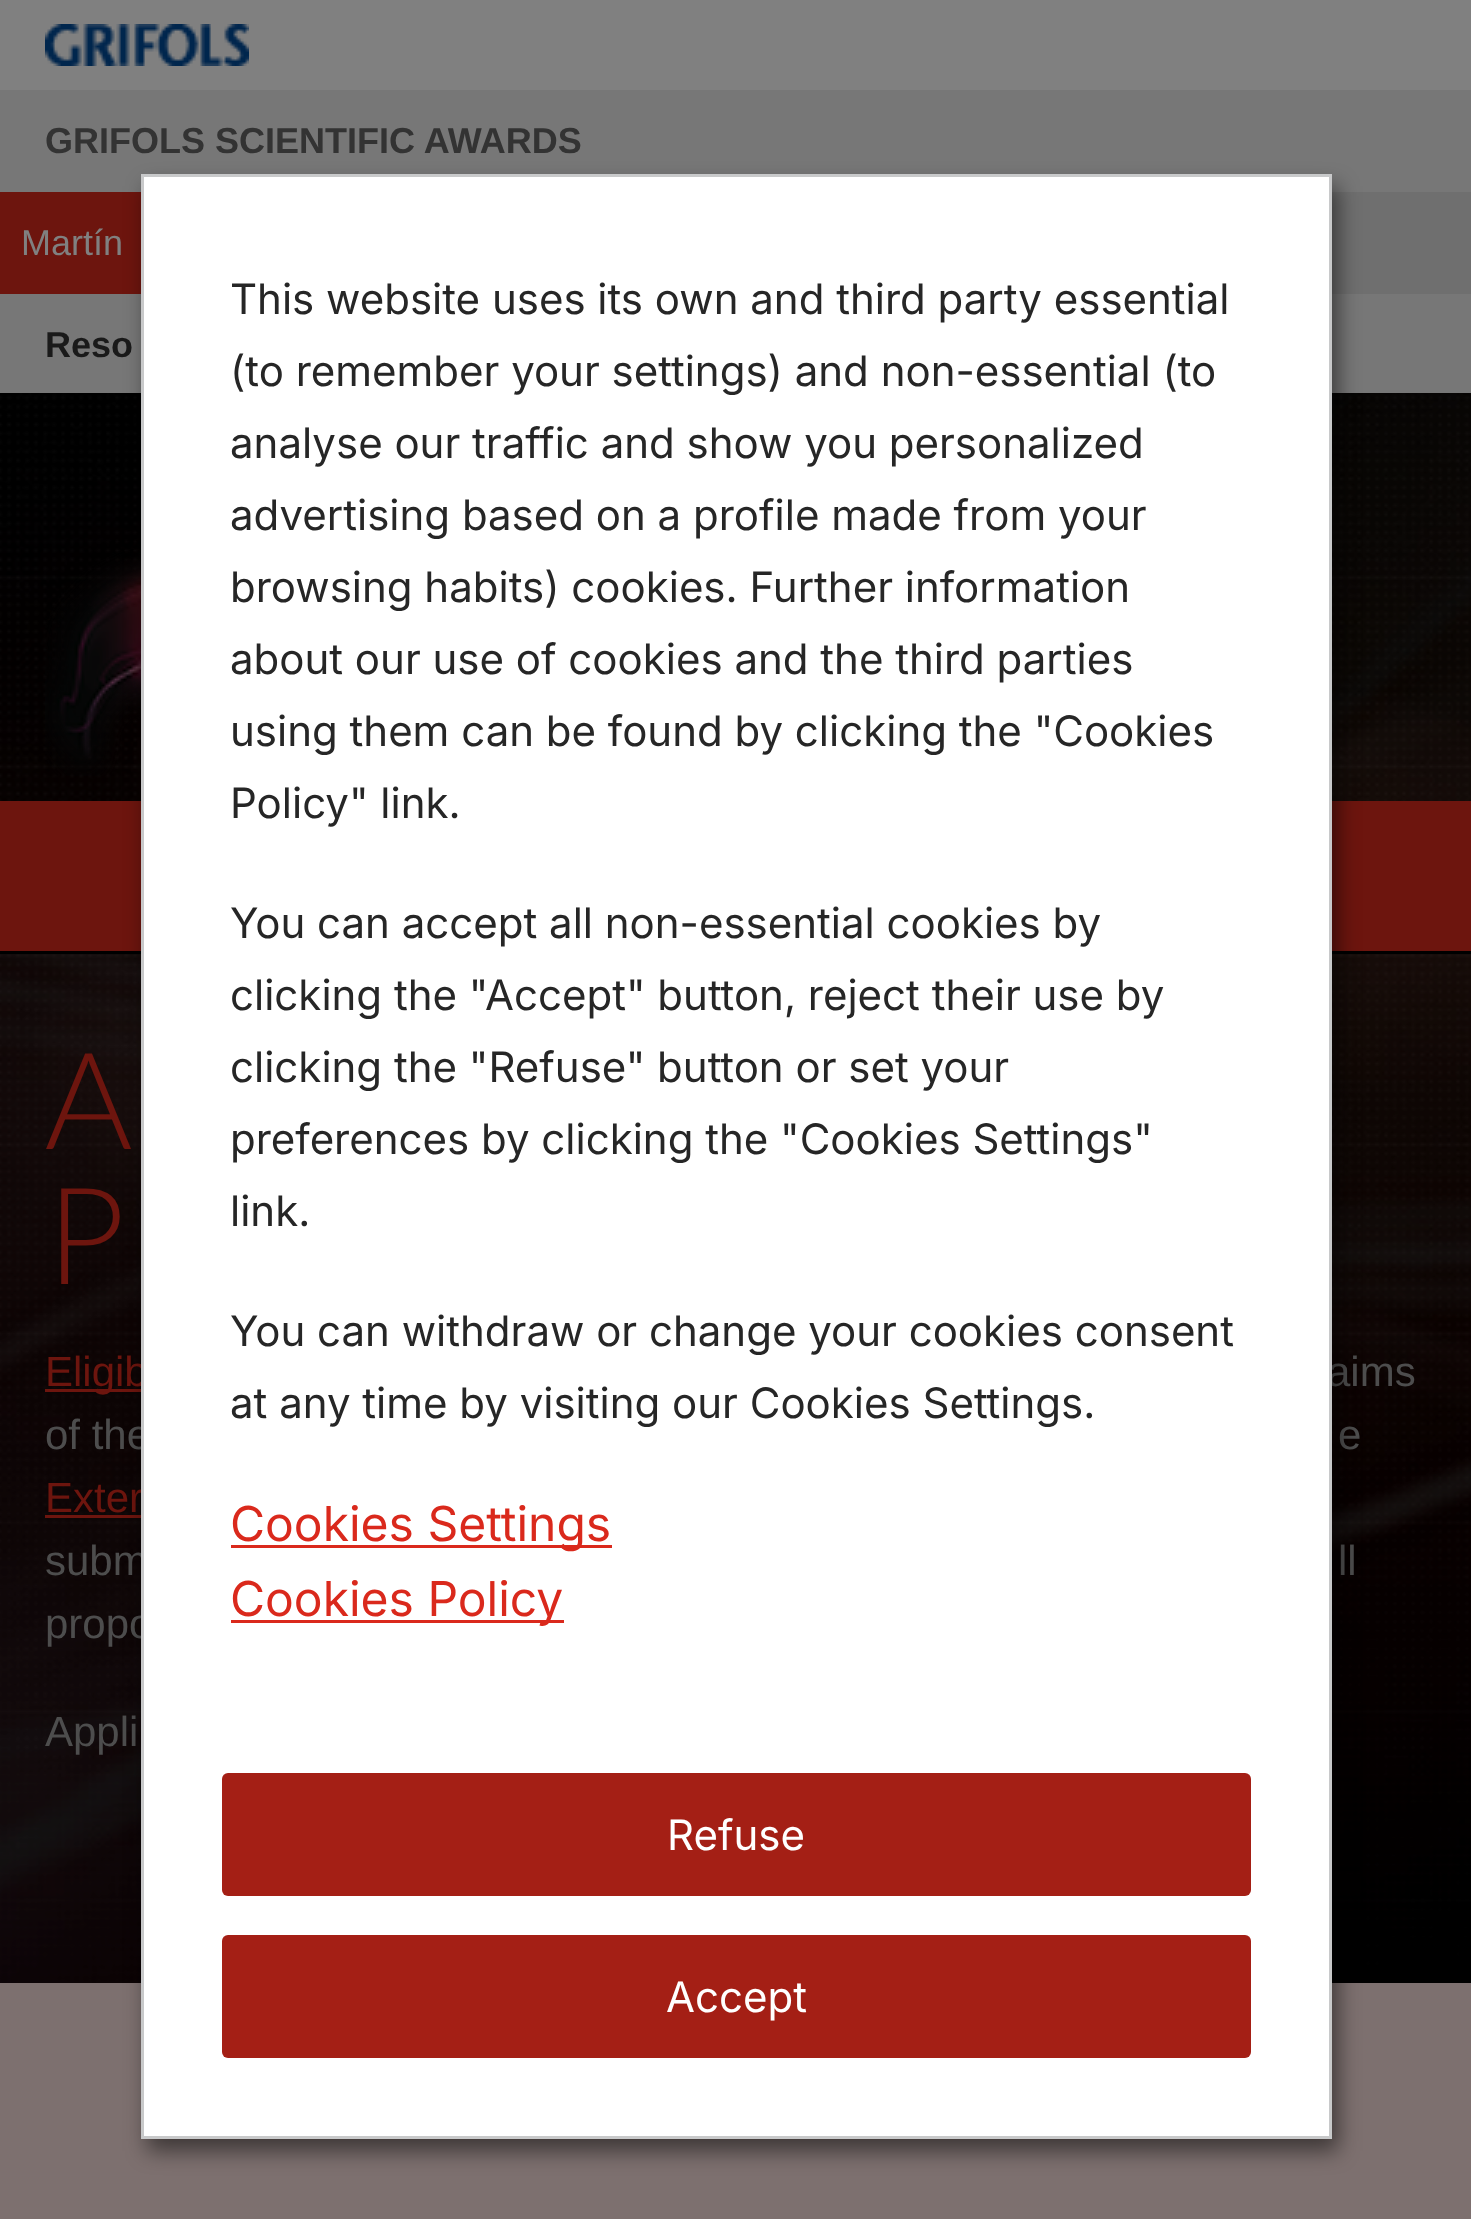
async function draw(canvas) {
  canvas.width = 1471;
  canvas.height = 2219;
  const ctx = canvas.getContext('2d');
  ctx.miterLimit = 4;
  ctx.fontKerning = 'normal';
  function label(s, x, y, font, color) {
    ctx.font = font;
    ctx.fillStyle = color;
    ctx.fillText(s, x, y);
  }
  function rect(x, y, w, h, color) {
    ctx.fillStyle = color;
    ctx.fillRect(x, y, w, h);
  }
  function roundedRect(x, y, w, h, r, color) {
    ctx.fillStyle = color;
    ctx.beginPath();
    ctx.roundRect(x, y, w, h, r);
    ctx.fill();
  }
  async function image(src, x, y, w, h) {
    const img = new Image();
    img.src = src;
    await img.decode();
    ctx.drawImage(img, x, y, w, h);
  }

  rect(0, 0, 1471, 2219, '#7d706f');
  await image('assets/img1.png', 0, 393, 1471, 1590);
  rect(0, 0, 1471, 90, '#808080');
  await image('assets/img2.png', 45, 24, 204, 42);
  rect(1332, 192, 139, 102, '#6f6f6f');
  rect(0, 90, 1471, 102, '#777');
  label('GRIFOLS SCIENTIFIC AWARDS', 45, 153, 'bold 36px Liberation Sans', '#333');
  rect(0, 192, 141, 102, '#6d150e');
  label('Martín', 21, 255, '36px Liberation Sans', '#808080');
  rect(0, 294, 1471, 99, '#777');
  label('Reso', 45, 357, 'bold 36px Liberation Sans', '#1a1a1a');
  await image('assets/img3.png', 45, 540, 96, 236);
  rect(0, 801, 1471, 150, '#6d150e');
  rect(0, 951, 141, 3, '#000');
  rect(1332, 951, 139, 3, '#000');
  label('A', 45, 1149, '300 135px Lato', '#6d150e');
  label('P', 45, 1284, '300 135px Lato', '#6d150e');
  rect(45, 1389, 96, 3, '#6d150e');
  label('Eligib', 45, 1386, '42px Liberation Sans', '#6d150e');
  label('aims', 1327, 1386, '42px Liberation Sans', '#4d4d4d');
  label('of the', 45, 1449, '42px Liberation Sans', '#4d4d4d');
  label('e', 1338, 1449, '42px Liberation Sans', '#4d4d4d');
  label('Exter', 45, 1512, '42px Liberation Sans', '#6d150e');
  rect(45, 1515, 96, 3, '#6d150e');
  label('subm', 45, 1575, '42px Liberation Sans', '#4d4d4d');
  label('ll', 1338, 1575, '42px Liberation Sans', '#4d4d4d');
  label('propo', 45, 1638, '42px Liberation Sans', '#4d4d4d');
  label('Appli', 45, 1746, '42px Liberation Sans', '#4d4d4d');
  ctx.fillStyle = '#00000080';
  ctx.filter = 'blur(10.5px)';
  ctx.beginPath();
  ctx.rect(147, 186, 1191, 1965);
  ctx.fill();
  ctx.filter = 'none';
  ctx.fillStyle = '#fff';
  ctx.beginPath();
  ctx.rect(142.5, 175.5, 1188, 1962);
  ctx.fill();
  ctx.strokeStyle = '#c8c9ca';
  ctx.lineWidth = 3;
  ctx.stroke();
  label('This website uses its own and third party essential', 230, 314, '42px Inter', '#262626');
  label('(to remember your settings) and non-essential (to', 230, 386, '42px Inter', '#262626');
  label('analyse our traffic and show you personalized', 230, 458, '42px Inter', '#262626');
  label('advertising based on a profile made from your', 230, 530, '42px Inter', '#262626');
  label('browsing habits) cookies. Further information', 230, 602, '42px Inter', '#262626');
  label('about our use of cookies and the third parties', 230, 674, '42px Inter', '#262626');
  label('using them can be found by clicking the "Cookies', 230, 746, '42px Inter', '#262626');
  label('Policy" link.', 230, 818, '42px Inter', '#262626');
  label('You can accept all non-essential cookies by', 230, 938, '42px Inter', '#262626');
  label('clicking the "Accept" button, reject their use by', 230, 1010, '42px Inter', '#262626');
  label('clicking the "Refuse" button or set your', 230, 1082, '42px Inter', '#262626');
  label('preferences by clicking the "Cookies Settings"', 230, 1154, '42px Inter', '#262626');
  label('link.', 230, 1226, '42px Inter', '#262626');
  label('You can withdraw or change your cookies consent', 230, 1346, '42px Inter', '#262626');
  label('at any time by visiting our Cookies Settings.', 230, 1418, '42px Inter', '#262626');
  rect(231, 1545, 381, 3, '#da291c');
  label('Cookies Settings', 230, 1541, '48px Inter', '#da291c');
  rect(231, 1620, 333, 3, '#da291c');
  label('Cookies Policy', 230, 1616, '48px Inter', '#da291c');
  roundedRect(222, 1773, 1029, 123, 6, '#a41f15');
  label('Refuse', 667, 1850, '42px Inter', '#fff');
  roundedRect(222, 1935, 1029, 123, 6, '#a41f15');
  label('Accept', 666, 2012, '42px Inter', '#fff');
}

draw(document.querySelector('canvas'));
